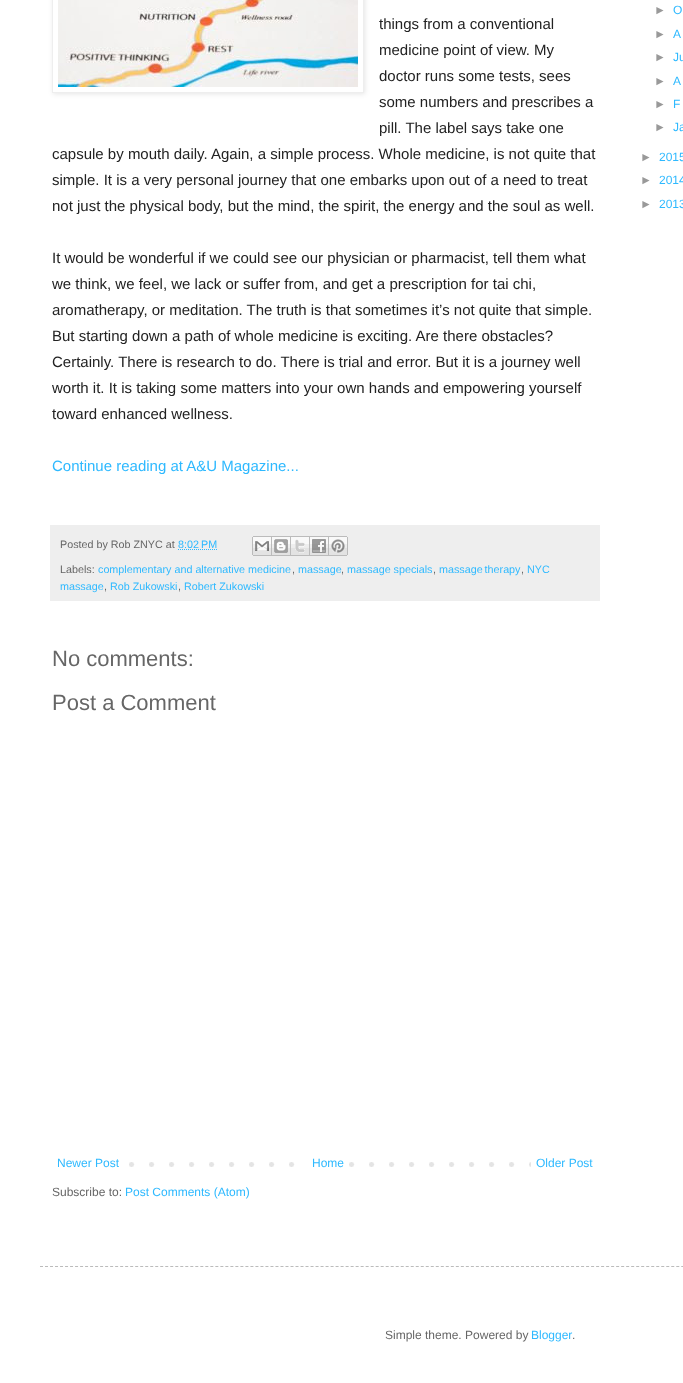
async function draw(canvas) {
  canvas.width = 683;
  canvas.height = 1383;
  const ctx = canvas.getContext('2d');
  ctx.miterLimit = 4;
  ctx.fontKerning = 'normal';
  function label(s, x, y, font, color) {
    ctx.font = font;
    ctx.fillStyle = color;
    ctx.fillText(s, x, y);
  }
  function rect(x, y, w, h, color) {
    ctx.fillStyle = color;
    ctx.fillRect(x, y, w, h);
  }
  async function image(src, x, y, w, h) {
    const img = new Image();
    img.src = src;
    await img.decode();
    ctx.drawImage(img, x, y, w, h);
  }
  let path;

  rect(0, 0, 683, 1383, '#fff');
  ctx.save();
  path = new Path2D('M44 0H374V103H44ZM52-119H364V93H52Z');
  ctx.clip(path, 'evenodd');
  ctx.fillStyle = '#0000001a';
  ctx.filter = 'blur(2.5px)';
  ctx.beginPath();
  ctx.rect(53, -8, 312, 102);
  ctx.fill();
  ctx.filter = 'none';
  ctx.restore();
  ctx.strokeStyle = '#eee';
  ctx.strokeRect(52.5, -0.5, 311, 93);
  await image('assets/img1.png', 58, 0, 300, 87);
  label('things from a conventional', 379, 29, '15px Liberation Sans', '#222');
  label('medicine point of view. My', 379, 55, '15px Liberation Sans', '#222');
  label('doctor runs some tests, sees', 379, 81, '15px Liberation Sans', '#222');
  label('some numbers and prescribes a', 379, 107, '15px Liberation Sans', '#222');
  label('pill. The label says take one', 379, 133, '15px Liberation Sans', '#222');
  label('capsule by mouth daily. Again, a simple process. Whole medicine, is not quite that', 52, 159, '15px Liberation Sans', '#222');
  label('simple. It is a very personal journey that one embarks upon out of a need to treat', 52, 185, '15px Liberation Sans', '#222');
  label('not just the physical body, but the mind, the spirit, the energy and the soul as well.', 52, 211, '15px Liberation Sans', '#222');
  label('It would be wonderful if we could see our physician or pharmacist, tell them what', 52, 263, '15px Liberation Sans', '#222');
  label('we think, we feel, we lack or suffer from, and get a prescription for tai chi,', 52, 289, '15px Liberation Sans', '#222');
  label('aromatherapy, or meditation. The truth is that sometimes it’s not quite that simple.', 52, 315, '15px Liberation Sans', '#222');
  label('But starting down a path of whole medicine is exciting. Are there obstacles?', 52, 341, '15px Liberation Sans', '#222');
  label('Certainly. There is research to do. There is trial and error. But it is a journey well', 52, 367, '15px Liberation Sans', '#222');
  label('worth it. It is taking some matters into your own hands and empowering yourself', 52, 393, '15px Liberation Sans', '#222');
  label('toward enhanced wellness.', 52, 419, '15px Liberation Sans', '#222');
  label('Continue reading at A&U Magazine...', 52, 471, '15px Liberation Sans', '#2eb9ff');
  rect(50, 525, 550, 76, '#eee');
  label('Posted by Rob ZNYC at', 60, 548, '10.75px Liberation Sans', '#666');
  label('8:02 PM', 178, 548, '10.75px Liberation Sans', '#2eb9ff');
  path = new Path2D('M178 549.5H217.5');
  ctx.strokeStyle = '#2eb9ff';
  ctx.setLineDash([1, 1]);
  ctx.stroke(path);
  await image('assets/img2.png', 252, 536, 20, 20);
  await image('assets/img3.png', 272, 536, 19, 20);
  await image('assets/img4.png', 291, 536, 19, 20);
  await image('assets/img5.png', 310, 536, 19, 20);
  await image('assets/img6.png', 329, 536, 19, 20);
  label('Labels:', 60, 573, '10.75px Liberation Sans', '#666');
  label('complementary and alternative medicine', 98, 573, '10.75px Liberation Sans', '#2eb9ff');
  label(',', 292, 573, '10.75px Liberation Sans', '#666');
  label('massage', 298, 573, '10.75px Liberation Sans', '#2eb9ff');
  label(',', 341, 573, '10.75px Liberation Sans', '#666');
  label('massage specials', 347, 573, '10.75px Liberation Sans', '#2eb9ff');
  label(',', 433, 573, '10.75px Liberation Sans', '#666');
  ctx.wordSpacing = '-1px';
  label('massage therapy', 439, 573, '10.75px Liberation Sans', '#2eb9ff');
  ctx.wordSpacing = '0px';
  label(',', 521, 573, '10.75px Liberation Sans', '#666');
  label('NYC', 527, 573, '10.75px Liberation Sans', '#2eb9ff');
  label('massage', 60, 590, '10.75px Liberation Sans', '#2eb9ff');
  label(',', 104, 590, '10.75px Liberation Sans', '#666');
  label('Rob Zukowski', 110, 590, '10.75px Liberation Sans', '#2eb9ff');
  label(',', 178, 590, '10.75px Liberation Sans', '#666');
  label('Robert Zukowski', 184, 590, '10.75px Liberation Sans', '#2eb9ff');
  label('No comments:', 52, 666, '22px Liberation Sans', '#666');
  label('Post a Comment', 52, 710, '22px Liberation Sans', '#666');
  await image('assets/img7.png', 129, 1162, 402, 5);
  label('Newer Post', 57, 1167, '12px Liberation Sans', '#2eb9ff');
  rect(309, 1162, 26, 5, '#fff');
  label('Home', 312, 1167, '12px Liberation Sans', '#2eb9ff');
  label('Older Post', 536, 1167, '12px Liberation Sans', '#2eb9ff');
  label('Subscribe to:', 52, 1196, '12px Liberation Sans', '#666');
  label('Post Comments (Atom)', 125, 1196, '12px Liberation Sans', '#2eb9ff');
  label('►', 654, 14, '12px Liberation Sans', '#999');
  label('O', 673, 14, '12px Liberation Sans', '#2eb9ff');
  label('►', 654, 38, '12px Liberation Sans', '#999');
  label('A', 673, 38, '12px Liberation Sans', '#2eb9ff');
  label('►', 654, 61, '12px Liberation Sans', '#999');
  label('Ju', 673, 61, '12px Liberation Sans', '#2eb9ff');
  label('►', 654, 85, '12px Liberation Sans', '#999');
  label('A', 673, 85, '12px Liberation Sans', '#2eb9ff');
  label('►', 654, 108, '12px Liberation Sans', '#999');
  label('F', 673, 108, '12px Liberation Sans', '#2eb9ff');
  label('►', 654, 131, '12px Liberation Sans', '#999');
  label('Ja', 673, 131, '12px Liberation Sans', '#2eb9ff');
  label('►', 640, 161, '12px Liberation Sans', '#999');
  label('2015', 659, 161, '12px Liberation Sans', '#2eb9ff');
  label('►', 640, 184, '12px Liberation Sans', '#999');
  label('2014', 659, 184, '12px Liberation Sans', '#2eb9ff');
  label('►', 640, 208, '12px Liberation Sans', '#999');
  label('2013', 659, 208, '12px Liberation Sans', '#2eb9ff');
  path = new Path2D('M40 1266.5H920');
  ctx.strokeStyle = '#bbb';
  ctx.setLineDash([3, 2.01]);
  ctx.stroke(path);
  label('Simple theme. Powered by', 385, 1339, '12px Liberation Sans', '#666');
  label('Blogger', 531, 1339, '12px Liberation Sans', '#2eb9ff');
  label('.', 572, 1339, '12px Liberation Sans', '#666');
}

draw(document.querySelector('canvas'));
